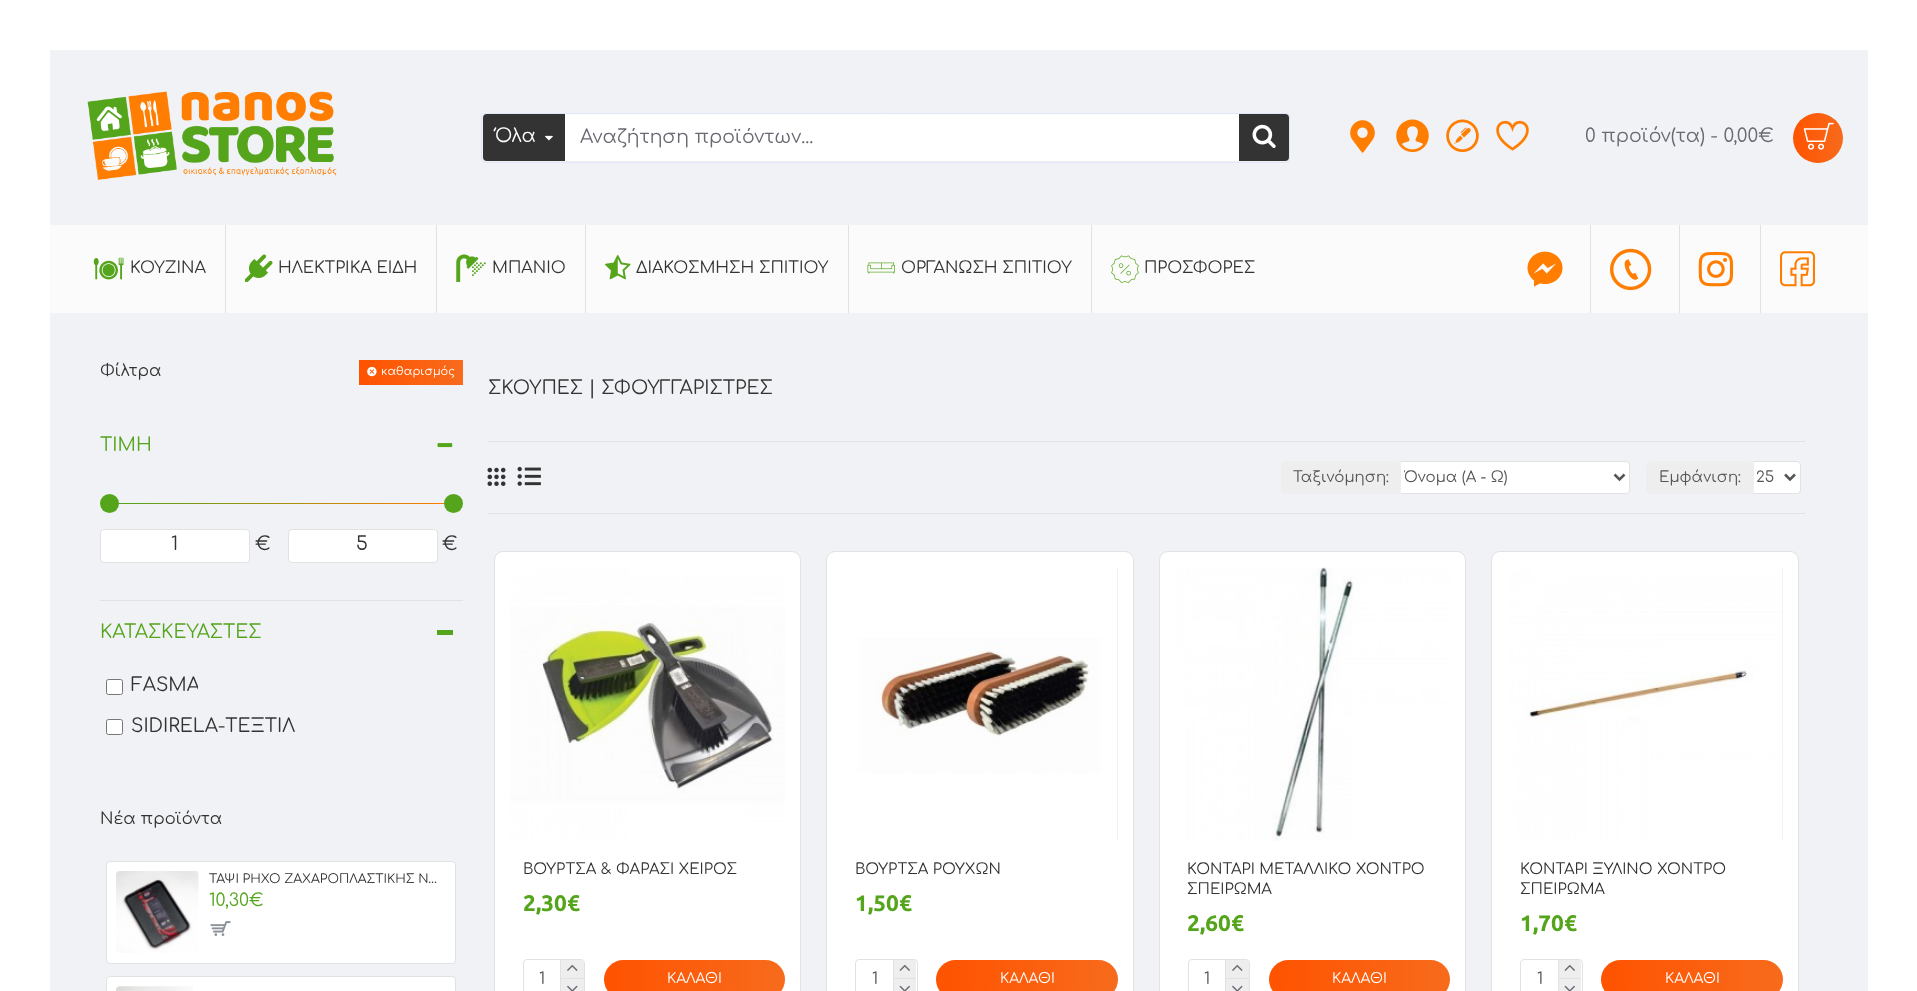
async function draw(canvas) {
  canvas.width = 1917;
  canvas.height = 991;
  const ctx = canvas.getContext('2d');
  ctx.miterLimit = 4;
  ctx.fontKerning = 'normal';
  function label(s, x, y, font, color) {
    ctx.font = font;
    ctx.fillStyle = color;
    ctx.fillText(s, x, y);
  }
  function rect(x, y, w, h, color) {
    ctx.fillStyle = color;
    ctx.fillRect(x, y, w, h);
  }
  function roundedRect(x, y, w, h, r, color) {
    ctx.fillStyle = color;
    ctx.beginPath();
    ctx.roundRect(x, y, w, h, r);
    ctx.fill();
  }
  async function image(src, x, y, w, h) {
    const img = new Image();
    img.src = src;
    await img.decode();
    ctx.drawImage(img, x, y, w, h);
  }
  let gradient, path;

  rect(0, 0, 1917, 991, '#f0f2f5');
  ctx.strokeStyle = '#fff';
  ctx.lineWidth = 50;
  ctx.strokeRect(25, 25, 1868, 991);
  await image('assets/img1.png', 87, 91, 250, 89);
  ctx.beginPath();
  ctx.roundRect(481.5, 113.5, 808, 49, 3.5);
  ctx.strokeStyle = '#dfe7f6';
  ctx.lineWidth = 1;
  ctx.stroke();
  ctx.fillStyle = '#333';
  ctx.beginPath();
  ctx.roundRect(483, 114, 82, 47, [4, 0, 0, 4]);
  ctx.fill();
  label('Όλα', 495, 142, '18.75px Comfortaa', '#fff');
  await image('assets/img2.png', 545, 135, 8, 6);
  rect(565, 114, 674, 47, '#fff');
  ctx.save();
  ctx.beginPath();
  ctx.rect(580, 128, 644, 21);
  ctx.clip();
  label('Αναζήτηση προϊόντων...', 580, 143, '18.75px Comfortaa', '#696973');
  ctx.restore();
  ctx.fillStyle = '#333';
  ctx.beginPath();
  ctx.roundRect(1239, 114, 50, 47, [0, 4, 4, 0]);
  ctx.fill();
  await image('assets/img3.png', 1252, 124, 24, 24);
  await image('assets/img4.png', 1350, 120, 25, 33);
  await image('assets/img5.png', 1396, 119, 33, 33);
  await image('assets/img6.png', 1446, 119, 33, 33);
  await image('assets/img7.png', 1496, 120, 33, 31);
  label('0 προϊόν(τα) - 0,00€', 1585, 142, '18.75px Comfortaa', '#696973');
  gradient = ctx.createLinearGradient(1793, 138, 1843, 138);
  gradient.addColorStop(0, '#ff5300');
  gradient.addColorStop(1, '#f76b1c');
  ctx.fillStyle = gradient;
  ctx.beginPath();
  ctx.arc(1818, 138, 25, 0, 2 * Math.PI);
  ctx.fill();
  await image('assets/img8.png', 1803, 122, 31, 28);
  rect(50, 225, 1818, 88, '#fbfbfb');
  await image('assets/img9.png', 93, 257, 31, 23);
  label('ΚΟΥΖΙΝΑ', 130, 273, '16.25px Comfortaa', '#333');
  rect(225, 225, 1, 88, '#e2e2e2');
  await image('assets/img10.png', 245, 254, 28, 28);
  label('ΗΛΕΚΤΡΙΚΑ ΕΙΔΗ', 278, 273, '16.25px Comfortaa', '#333');
  rect(436, 225, 1, 88, '#e2e2e2');
  await image('assets/img11.png', 456, 254, 30, 28);
  label('ΜΠΑΝΙΟ', 492, 273, '16.25px Comfortaa', '#333');
  rect(585, 225, 1, 88, '#e2e2e2');
  await image('assets/img12.png', 605, 255, 26, 25);
  label('ΔΙΑΚΟΣΜΗΣΗ ΣΠΙΤΙΟΥ', 636, 273, '16.25px Comfortaa', '#333');
  rect(848, 225, 1, 88, '#e2e2e2');
  await image('assets/img13.png', 867, 262, 28, 12);
  label('ΟΡΓΑΝΩΣΗ ΣΠΙΤΙΟΥ', 901, 273, '16.25px Comfortaa', '#333');
  rect(1091, 225, 1, 88, '#e2e2e2');
  await image('assets/img14.png', 1111, 255, 28, 28);
  label('ΠΡΟΣΦΟΡΕΣ', 1144, 273, '16.25px Comfortaa', '#333');
  await image('assets/img15.png', 1527, 251, 36, 36);
  rect(1590, 225, 1, 88, '#e2e2e2');
  await image('assets/img16.png', 1610, 248, 42, 43);
  rect(1679, 225, 1, 88, '#e2e2e2');
  await image('assets/img17.png', 1698, 251, 36, 36);
  rect(1760, 225, 1, 88, '#e2e2e2');
  await image('assets/img18.png', 1780, 251, 35, 36);
  label('Φίλτρα', 100, 376, '16.25px Comfortaa', '#333');
  gradient = ctx.createLinearGradient(359, 373, 463, 373);
  gradient.addColorStop(0, '#ff5300');
  gradient.addColorStop(1, '#f76b1c');
  ctx.fillStyle = gradient;
  ctx.fillRect(359, 360, 104, 25);
  await image('assets/img19.png', 367, 366, 10, 11);
  label('καθαρισμός', 381, 375, '11.25px Comfortaa', '#fff');
  label('ΤΙΜΗ', 100, 451, '18.75px Comfortaa', '#55a51c');
  await image('assets/img20.png', 437, 443, 16, 5);
  ctx.fillStyle = '#ff7d00';
  path = new Path2D('M106 503H456H461L462 504H456H106H100L102 503Z');
  ctx.fill(path);
  ctx.fillStyle = '#55a51c';
  path = new Path2D('M116 503L453 504C457 504 448 504 448 504H116H110L112 503Z');
  ctx.fill(path);
  ctx.beginPath();
  ctx.arc(109.5, 503.5, 9.5, 0, 2 * Math.PI);
  ctx.fill();
  ctx.beginPath();
  ctx.arc(453.5, 503.5, 9.5, 0, 2 * Math.PI);
  ctx.fill();
  ctx.fillStyle = '#fff';
  ctx.beginPath();
  ctx.roundRect(100.5, 529.5, 149, 33, 3.5);
  ctx.fill();
  ctx.strokeStyle = '#e2e2e2';
  ctx.stroke();
  label('1', 171, 550, '18.75px Comfortaa', '#333');
  label('€', 255, 550, '18.75px Comfortaa', '#333');
  ctx.fillStyle = '#fff';
  ctx.beginPath();
  ctx.roundRect(288.5, 529.5, 149, 33, 3.5);
  ctx.fill();
  ctx.stroke();
  label('5', 356, 550, '18.75px Comfortaa', '#333');
  label('€', 442, 550, '18.75px Comfortaa', '#333');
  rect(100, 600, 363, 1, '#e2e2e2');
  label('ΚΑΤΑΣΚΕΥΑΣΤΕΣ', 100, 638, '18.75px Comfortaa', '#55a51c');
  rect(437, 630, 16, 5, '#55a51c');
  ctx.fillStyle = '#fff';
  ctx.beginPath();
  ctx.roundRect(106.5, 679.5, 16, 15, 2);
  ctx.fill();
  ctx.strokeStyle = '#767676';
  ctx.stroke();
  ctx.save();
  ctx.beginPath();
  ctx.rect(131, 673, 67, 28);
  ctx.clip();
  label('FASMA', 131, 691, '18.75px Comfortaa', '#333');
  ctx.restore();
  ctx.beginPath();
  ctx.roundRect(106.5, 719.5, 16, 15, 2);
  ctx.fill();
  ctx.stroke();
  label('SIDIRELA-ΤΕΞΤΙΛ', 131, 732, '18.75px Comfortaa', '#333');
  label('Νέα προϊόντα', 100, 824, '16.25px Comfortaa', '#333');
  ctx.fillStyle = '#fff';
  ctx.beginPath();
  ctx.roundRect(106.5, 861.5, 349, 102, 3.5);
  ctx.fill();
  ctx.strokeStyle = '#e2e2e2';
  ctx.stroke();
  await image('assets/img21.png', 116, 871, 83, 82);
  label('ΤΑΨΙ ΡΗΧΟ ΖΑΧΑΡΟΠΛΑΣΤΙΚΗΣ Ν…', 209, 883, '12.5px Comfortaa', '#333');
  label('10,30€', 209, 906, '17.5px Comfortaa', '#55a51c');
  await image('assets/img22.png', 210, 921, 21, 15);
  ctx.fillStyle = '#fff';
  ctx.beginPath();
  ctx.roundRect(106.5, 976.5, 349, 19, 3.5);
  ctx.fill();
  ctx.stroke();
  await image('assets/img23.png', 116, 986, 77, 5);
  label('ΣΚΟΥΠΕΣ | ΣΦΟΥΓΓΑΡΙΣΤΡΕΣ', 488, 394, '18.75px Comfortaa', '#333');
  rect(488, 441, 1317, 1, '#e2e2e2');
  rect(488, 513, 1317, 1, '#e2e2e2');
  await image('assets/img24.png', 487, 467, 19, 19);
  await image('assets/img25.png', 517, 466, 24, 20);
  ctx.fillStyle = '#fff';
  ctx.beginPath();
  ctx.roundRect(1398.5, 461.5, 231, 32, 3.5);
  ctx.fill();
  ctx.stroke();
  roundedRect(1281, 461, 120, 33, 4, '#eee');
  label('Ταξινόμηση:', 1293, 482, '15px Comfortaa', '#555');
  path = new Path2D('M1614.5 474.5L1619.5 479.5L1624.5 474.5');
  ctx.strokeStyle = '#555';
  ctx.lineWidth = 2.5;
  ctx.stroke(path);
  ctx.save();
  ctx.beginPath();
  ctx.rect(1404, 468, 205, 20);
  ctx.clip();
  label('Όνομα (A - Ω)', 1404, 482, '15px Comfortaa', '#555');
  ctx.restore();
  ctx.fillStyle = '#fff';
  ctx.beginPath();
  ctx.roundRect(1750.5, 461.5, 50, 32, 3.5);
  ctx.fill();
  ctx.strokeStyle = '#e2e2e2';
  ctx.lineWidth = 1;
  ctx.stroke();
  roundedRect(1646, 461, 108, 33, 4, '#eee');
  label('Εμφάνιση:', 1659, 482, '15px Comfortaa', '#555');
  path = new Path2D('M1785 474.5L1790 479.5L1795 474.5');
  ctx.strokeStyle = '#555';
  ctx.lineWidth = 2.5;
  ctx.stroke(path);
  label('25', 1756, 482, '15px Comfortaa', '#555');
  ctx.fillStyle = '#fff';
  ctx.beginPath();
  ctx.roundRect(494.5, 551.5, 306, 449, 8.5);
  ctx.fill();
  ctx.strokeStyle = '#e2e2e2';
  ctx.lineWidth = 1;
  ctx.stroke();
  await image('assets/img26.png', 510, 568, 275, 273);
  label('ΒΟΥΡΤΣΑ & ΦΑΡΑΣΙ ΧΕΙΡΟΣ', 523, 874, '15px Comfortaa', '#333');
  label('2,30€', 523, 911, 'bold 22.5px Ubuntu', '#55a51c');
  ctx.beginPath();
  ctx.roundRect(523.5, 959.5, 61, 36, 3.5);
  ctx.stroke();
  label('1', 539, 984, '16.25px Comfortaa', '#555');
  rect(560, 960, 1, 31, '#e2e2e2');
  ctx.fillStyle = '#eee';
  ctx.beginPath();
  ctx.roundRect(561, 960, 23, 18, [0, 2.5, 0, 0]);
  ctx.fill();
  rect(561, 978, 23, 1, '#e2e2e2');
  await image('assets/img27.png', 567, 964, 11, 7);
  rect(561, 979, 23, 12, '#eee');
  await image('assets/img28.png', 567, 985, 11, 6);
  gradient = ctx.createLinearGradient(604, 979, 785, 979);
  gradient.addColorStop(0, '#ff5300');
  gradient.addColorStop(1, '#f76b1c');
  ctx.fillStyle = gradient;
  ctx.beginPath();
  ctx.roundRect(604, 960, 181, 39, 19.5);
  ctx.fill();
  label('ΚΑΛΑΘΙ', 667, 983, '14px Comfortaa', '#fff');
  ctx.beginPath();
  ctx.roundRect(826.5, 551.5, 307, 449, 8.5);
  ctx.fill();
  ctx.stroke();
  rect(1117, 568, 1, 273, '#eee');
  await image('assets/img29.png', 843, 568, 275, 273);
  label('ΒΟΥΡΤΣΑ ΡΟΥΧΩΝ', 855, 874, '15px Comfortaa', '#333');
  label('1,50€', 855, 911, 'bold 22.5px Ubuntu', '#55a51c');
  ctx.beginPath();
  ctx.roundRect(855.5, 959.5, 62, 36, 3.5);
  ctx.stroke();
  label('1', 872, 984, '16.25px Comfortaa', '#555');
  rect(893, 960, 1, 31, '#e2e2e2');
  ctx.fillStyle = '#eee';
  ctx.beginPath();
  ctx.roundRect(894, 960, 22, 18, [0, 2.5, 0, 0]);
  ctx.fill();
  rect(894, 978, 22, 1, '#e2e2e2');
  await image('assets/img30.png', 899, 964, 11, 7);
  rect(894, 979, 22, 12, '#eee');
  await image('assets/img31.png', 899, 985, 11, 6);
  gradient = ctx.createLinearGradient(936, 979, 1118, 979);
  gradient.addColorStop(0, '#ff5300');
  gradient.addColorStop(1, '#f76b1c');
  ctx.fillStyle = gradient;
  ctx.beginPath();
  ctx.roundRect(936, 960, 182, 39, 19.5);
  ctx.fill();
  label('ΚΑΛΑΘΙ', 1000, 983, '14px Comfortaa', '#fff');
  ctx.beginPath();
  ctx.roundRect(1159.5, 551.5, 306, 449, 8.5);
  ctx.fill();
  ctx.stroke();
  await image('assets/img32.png', 1175, 567, 275, 274);
  label('ΚΟΝΤΑΡΙ ΜΕΤΑΛΛΙΚΟ ΧΟΝΤΡΟ', 1187, 874, '15px Comfortaa', '#333');
  label('ΣΠΕΙΡΩΜΑ', 1187, 894, '15px Comfortaa', '#333');
  label('2,60€', 1187, 931, 'bold 22.5px Ubuntu', '#55a51c');
  ctx.beginPath();
  ctx.roundRect(1188.5, 959.5, 61, 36, 3.5);
  ctx.stroke();
  label('1', 1204, 984, '16.25px Comfortaa', '#555');
  rect(1225, 960, 1, 31, '#e2e2e2');
  ctx.fillStyle = '#eee';
  ctx.beginPath();
  ctx.roundRect(1226, 960, 23, 18, [0, 2.5, 0, 0]);
  ctx.fill();
  rect(1226, 978, 23, 1, '#e2e2e2');
  await image('assets/img27.png', 1232, 964, 11, 7);
  rect(1226, 979, 23, 12, '#eee');
  await image('assets/img28.png', 1232, 985, 11, 6);
  gradient = ctx.createLinearGradient(1269, 979, 1450, 979);
  gradient.addColorStop(0, '#ff5300');
  gradient.addColorStop(1, '#f76b1c');
  ctx.fillStyle = gradient;
  ctx.beginPath();
  ctx.roundRect(1269, 960, 181, 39, 19.5);
  ctx.fill();
  label('ΚΑΛΑΘΙ', 1332, 983, '14px Comfortaa', '#fff');
  ctx.beginPath();
  ctx.roundRect(1491.5, 551.5, 307, 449, 8.5);
  ctx.fill();
  ctx.stroke();
  rect(1782, 568, 1, 273, '#eee');
  await image('assets/img33.png', 1508, 568, 275, 273);
  label('ΚΟΝΤΑΡΙ ΞΥΛΙΝΟ ΧΟΝΤΡΟ', 1520, 874, '15px Comfortaa', '#333');
  label('ΣΠΕΙΡΩΜΑ', 1520, 894, '15px Comfortaa', '#333');
  label('1,70€', 1520, 931, 'bold 22.5px Ubuntu', '#55a51c');
  ctx.beginPath();
  ctx.roundRect(1520.5, 959.5, 62, 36, 3.5);
  ctx.stroke();
  label('1', 1537, 984, '16.25px Comfortaa', '#555');
  rect(1558, 960, 1, 31, '#e2e2e2');
  ctx.fillStyle = '#eee';
  ctx.beginPath();
  ctx.roundRect(1559, 960, 22, 18, [0, 2.5, 0, 0]);
  ctx.fill();
  rect(1559, 978, 22, 1, '#e2e2e2');
  await image('assets/img30.png', 1564, 964, 11, 7);
  rect(1559, 979, 22, 12, '#eee');
  await image('assets/img31.png', 1564, 985, 11, 6);
  gradient = ctx.createLinearGradient(1601, 979, 1783, 979);
  gradient.addColorStop(0, '#ff5300');
  gradient.addColorStop(1, '#f76b1c');
  ctx.fillStyle = gradient;
  ctx.beginPath();
  ctx.roundRect(1601, 960, 182, 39, 19.5);
  ctx.fill();
  label('ΚΑΛΑΘΙ', 1665, 983, '14px Comfortaa', '#fff');
}

draw(document.querySelector('canvas'));
